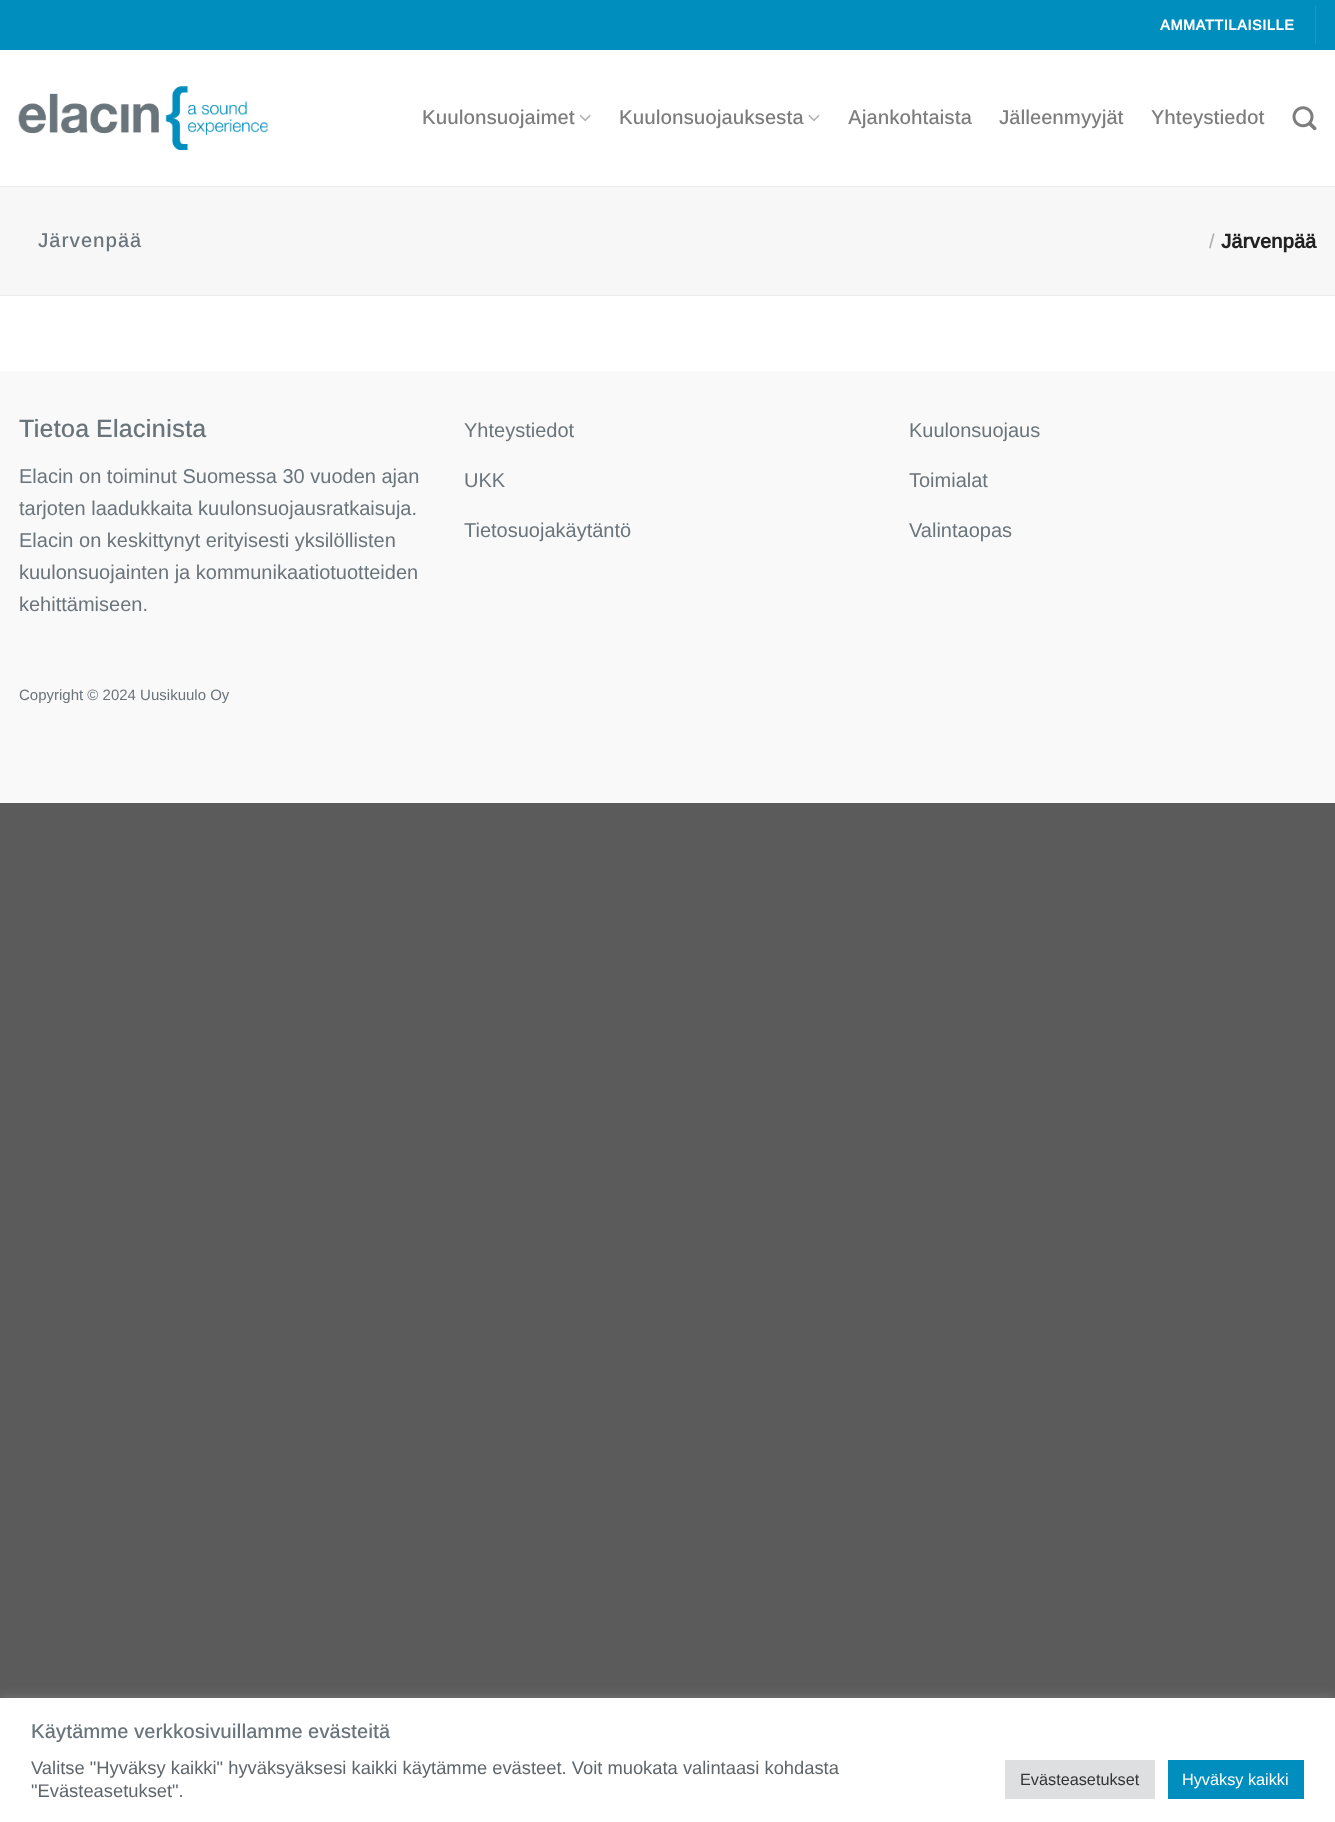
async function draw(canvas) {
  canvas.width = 1335;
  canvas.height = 1822;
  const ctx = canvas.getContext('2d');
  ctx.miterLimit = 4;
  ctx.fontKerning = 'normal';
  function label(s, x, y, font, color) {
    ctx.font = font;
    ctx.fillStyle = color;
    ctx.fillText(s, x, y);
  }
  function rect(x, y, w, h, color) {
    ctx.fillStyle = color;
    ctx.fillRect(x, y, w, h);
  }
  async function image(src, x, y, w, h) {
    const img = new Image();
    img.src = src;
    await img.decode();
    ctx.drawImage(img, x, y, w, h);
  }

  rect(0, 0, 1335, 1822, '#5b5b5b');
  rect(0, 50, 1335, 321, '#fff');
  rect(0, 0, 1335, 50, '#008ebf');
  ctx.letterSpacing = '0.5px';
  label('AMMATTILAISILLE', 1160, 30, 'bold 14.5px Arimo', '#fff');
  rect(1315, 6, 1, 38, '#1a99c5');
  await image('assets/img1.png', 18, 86, 250, 64);
  ctx.letterSpacing = '0px';
  label('Kuulonsuojaimet', 422, 124, '500 20px Arimo', '#7d7d7d');
  await image('assets/img2.png', 579, 114, 12, 8);
  label('Kuulonsuojauksesta', 619, 124, '500 20px Arimo', '#7d7d7d');
  await image('assets/img3.png', 808, 114, 12, 8);
  label('Ajankohtaista', 848, 124, '500 20px Arimo', '#7d7d7d');
  label('Jälleenmyyjät', 999, 124, '500 20px Arimo', '#7d7d7d');
  label('Yhteystiedot', 1151, 124, '500 20px Arimo', '#7d7d7d');
  await image('assets/img4.png', 1292, 106, 25, 25);
  rect(0, 187, 1335, 108, '#f7f7f7');
  rect(0, 186, 1335, 1, '#ececec');
  rect(0, 295, 1335, 1, '#ececec');
  ctx.letterSpacing = '1px';
  label('Järvenpää', 38, 247, '500 20px Arimo', '#6a747b');
  ctx.letterSpacing = '0px';
  label('/', 1209, 248, '20px Arimo', '#acacac');
  label('Järvenpää', 1221, 248, 'bold 20px Arimo', '#222');
  rect(0, 371, 1335, 432, '#f9f9f9');
  label('Tietoa Elacinista', 19, 437, '500 25px Arimo', '#6a747b');
  label('Elacin on toiminut Suomessa 30 vuoden ajan', 19, 483, '20px Arimo', '#6a747b');
  label('tarjoten laadukkaita kuulonsuojausratkaisuja.', 19, 515, '20px Arimo', '#6a747b');
  label('Elacin on keskittynyt erityisesti yksilöllisten', 19, 547, '20px Arimo', '#6a747b');
  label('kuulonsuojainten ja kommunikaatiotuotteiden', 19, 579, '20px Arimo', '#6a747b');
  label('kehittämiseen.', 19, 611, '20px Arimo', '#6a747b');
  label('Yhteystiedot', 464, 437, '20px Arimo', '#6a747b');
  label('UKK', 464, 487, '20px Arimo', '#6a747b');
  label('Tietosuojakäytäntö', 464, 537, '20px Arimo', '#6a747b');
  label('Kuulonsuojaus', 909, 437, '20px Arimo', '#6a747b');
  label('Toimialat', 909, 487, '20px Arimo', '#6a747b');
  label('Valintaopas', 909, 537, '20px Arimo', '#6a747b');
  label('Copyright © 2024 Uusikuulo Oy', 19, 700, '15px Arimo', '#6a747b');
  ctx.fillStyle = '#acabab4d';
  ctx.filter = 'blur(6px)';
  ctx.beginPath();
  ctx.rect(0, 1696, 1335, 125);
  ctx.fill();
  ctx.filter = 'none';
  rect(0, 1698, 1335, 124, '#fff');
  label('Käytämme verkkosivuillamme evästeitä', 31, 1738, '500 20px Arimo', '#6a747b');
  label('Valitse "Hyväksy kaikki" hyväksyäksesi kaikki käytämme evästeet. Voit muokata valintaasi kohdasta', 31, 1774, '18.35px Liberation Sans', '#5e666c');
  label('"Evästeasetukset".', 31, 1797, '18.35px Liberation Sans', '#5e666c');
  rect(1005, 1760, 150, 39, '#dedfe0');
  label('Evästeasetukset', 1020, 1785, '16.25px Liberation Sans', '#333');
  rect(1168, 1760, 136, 39, '#008ebf');
  label('Hyväksy kaikki', 1182, 1785, '16.25px Liberation Sans', '#fff');
}

draw(document.querySelector('canvas'));
